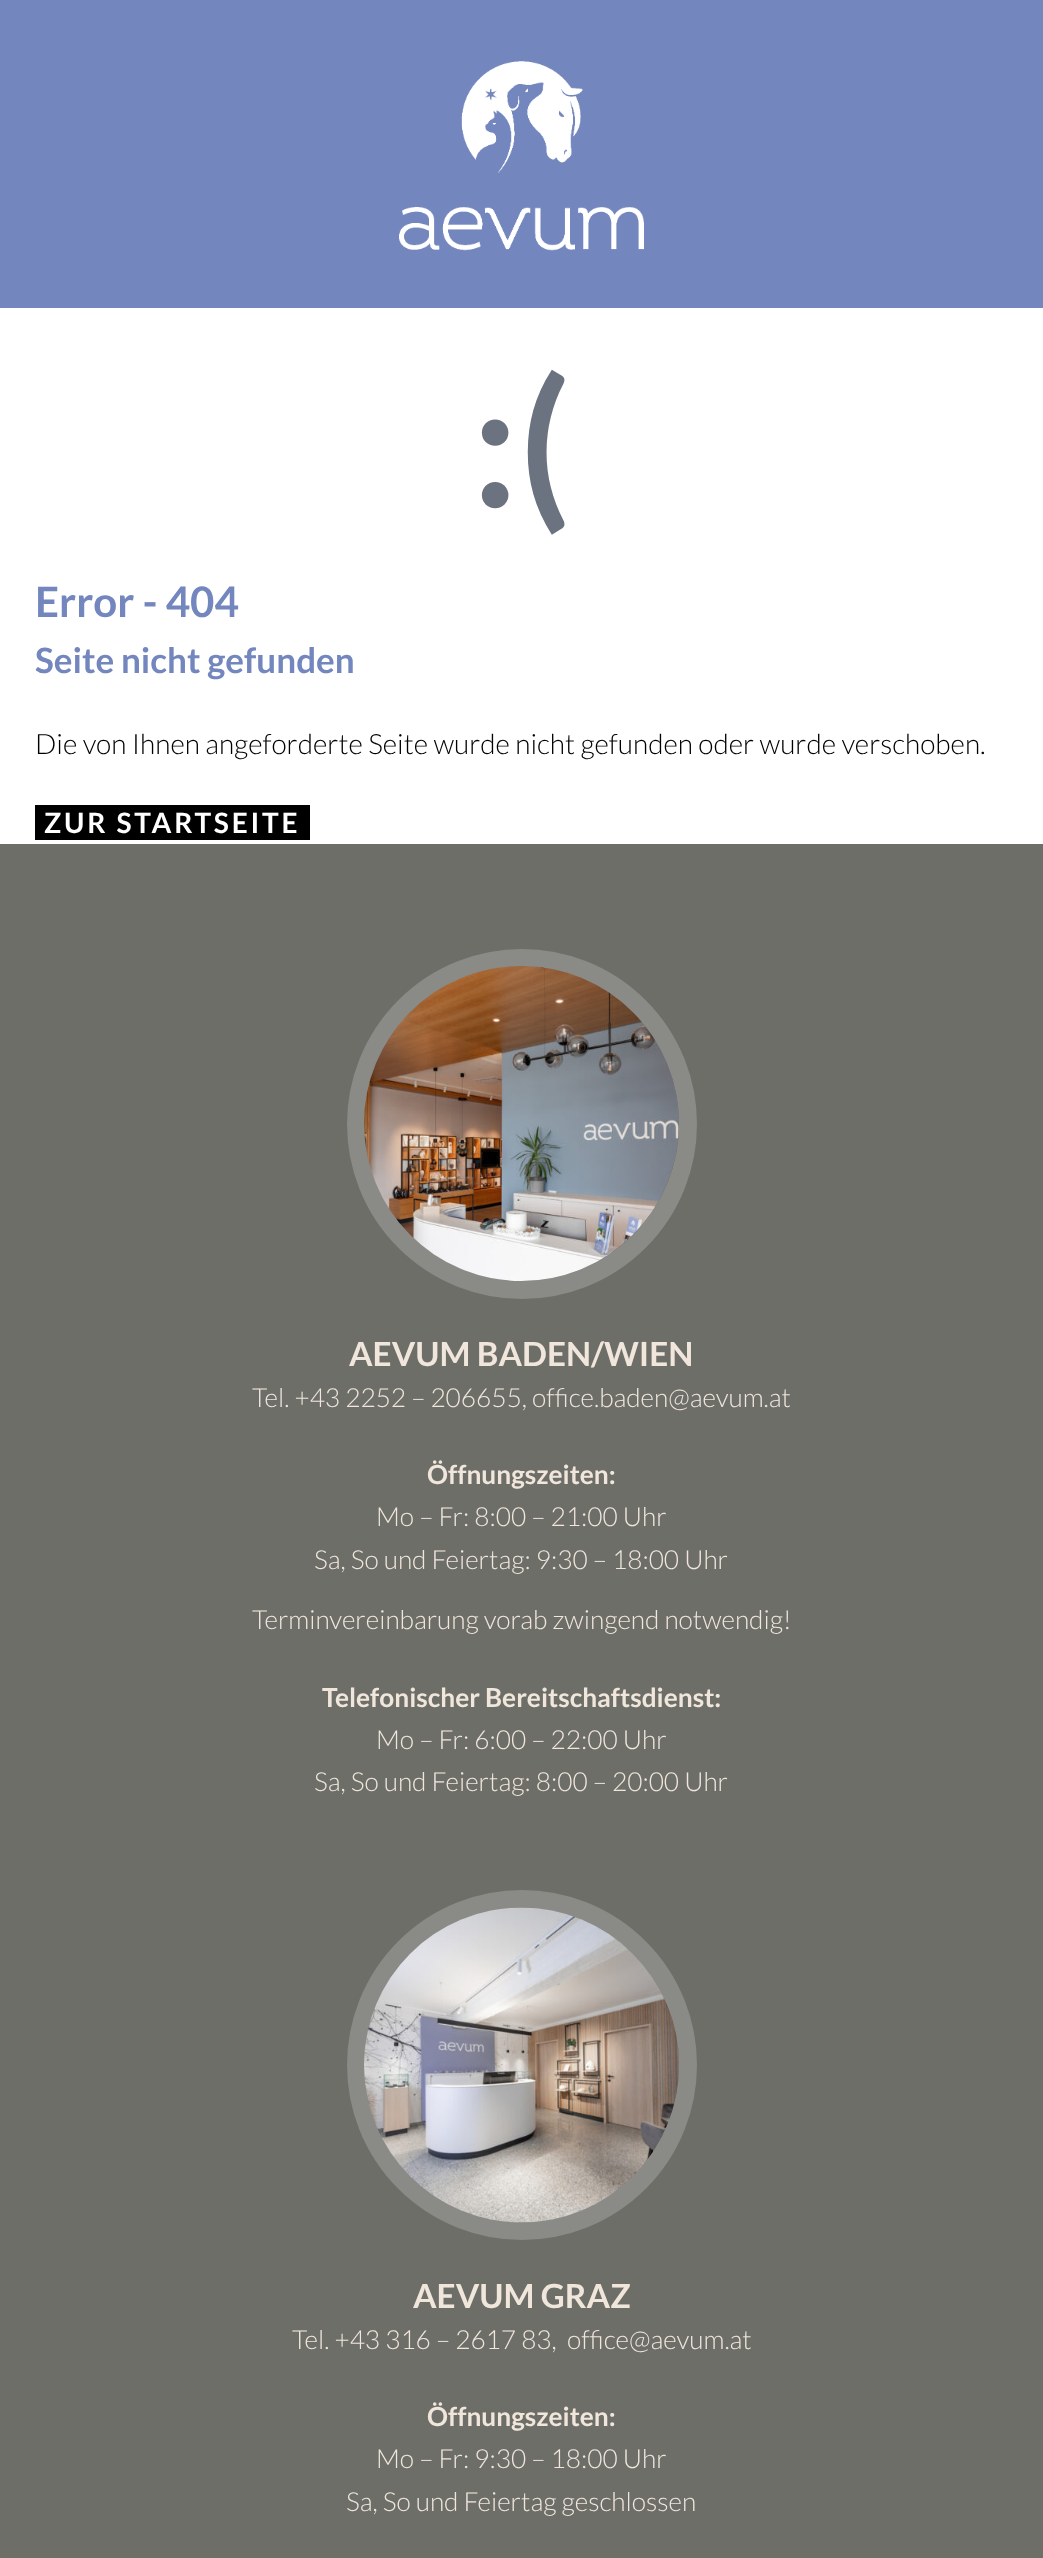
async function draw(canvas) {
  canvas.width = 1043;
  canvas.height = 2558;
  const ctx = canvas.getContext('2d');
  ctx.miterLimit = 4;
  ctx.fontKerning = 'normal';
  function label(s, x, y, font, color) {
    ctx.font = font;
    ctx.fillStyle = color;
    ctx.fillText(s, x, y);
  }
  function rect(x, y, w, h, color) {
    ctx.fillStyle = color;
    ctx.fillRect(x, y, w, h);
  }
  async function image(src, x, y, w, h) {
    const img = new Image();
    img.src = src;
    await img.decode();
    ctx.drawImage(img, x, y, w, h);
  }

  rect(0, 0, 1043, 2558, '#fff');
  rect(0, 0, 1043, 308, '#7387be');
  await image('assets/img1.png', 399, 61, 245, 190);
  label(':(', 472, 507, 'bold 175px Lato', '#6b7280');
  label('Error - 404', 35, 617, 'bold 42px Lato', '#7387be');
  label('Seite nicht gefunden', 35, 673, 'bold 35px Lato', '#7387be');
  label('Die von Ihnen angeforderte Seite wurde nicht gefunden oder wurde verschoben.', 35, 754, '300 28px Lato', '#000');
  rect(35, 805, 275, 35, '#000');
  ctx.letterSpacing = '2.75px';
  label('ZUR STARTSEITE', 44, 833, 'bold 28px Lato', '#fff');
  rect(0, 844, 1043, 1714, '#6d6e68');
  ctx.beginPath();
  ctx.arc(522, 1124, 166, 0, 2 * Math.PI);
  ctx.strokeStyle = '#8a8a86';
  ctx.lineWidth = 18;
  ctx.stroke();
  await image('assets/img2.png', 364, 966, 315, 315);
  ctx.letterSpacing = '0px';
  label('AEVUM BADEN/WIEN', 349, 1366, 'bold 33.25px Lato', '#f0e6dc');
  label('Tel. +43 2252 – 206655, office.baden@aevum.at', 252, 1407, '300 26.25px Lato', '#f0e6dc');
  label('Öffnungszeiten:', 427, 1484, 'bold 26.25px Lato', '#f0e6dc');
  label('Mo – Fr: 8:00 – 21:00 Uhr', 376, 1526, '300 26.25px Lato', '#f0e6dc');
  label('Sa, So und Feiertag: 9:30 – 18:00 Uhr', 314, 1569, '300 26.25px Lato', '#f0e6dc');
  label('Terminvereinbarung vorab zwingend notwendig!', 252, 1629, '300 26.25px Lato', '#f0e6dc');
  label('Telefonischer Bereitschaftsdienst:', 322, 1707, 'bold 26.25px Lato', '#f0e6dc');
  label('Mo – Fr: 6:00 – 22:00 Uhr', 376, 1749, '300 26.25px Lato', '#f0e6dc');
  label('Sa, So und Feiertag: 8:00 – 20:00 Uhr', 314, 1791, '300 26.25px Lato', '#f0e6dc');
  ctx.beginPath();
  ctx.arc(522, 2065, 166, 0, 2 * Math.PI);
  ctx.stroke();
  await image('assets/img3.png', 364, 1907, 315, 316);
  label('AEVUM GRAZ', 413, 2308, 'bold 33.25px Lato', '#f0e6dc');
  label('Tel. +43 316 – 2617 83,', 292, 2349, '300 26.25px Lato', '#f0e6dc');
  label('office@aevum.at', 567, 2349, '300 26.25px Lato', '#f0e6dc');
  label('Öffnungszeiten:', 427, 2426, 'bold 26.25px Lato', '#f0e6dc');
  label('Mo – Fr: 9:30 – 18:00 Uhr', 376, 2468, '300 26.25px Lato', '#f0e6dc');
  label('Sa, So und Feiertag geschlossen', 346, 2511, '300 26.25px Lato', '#f0e6dc');
}

draw(document.querySelector('canvas'));
